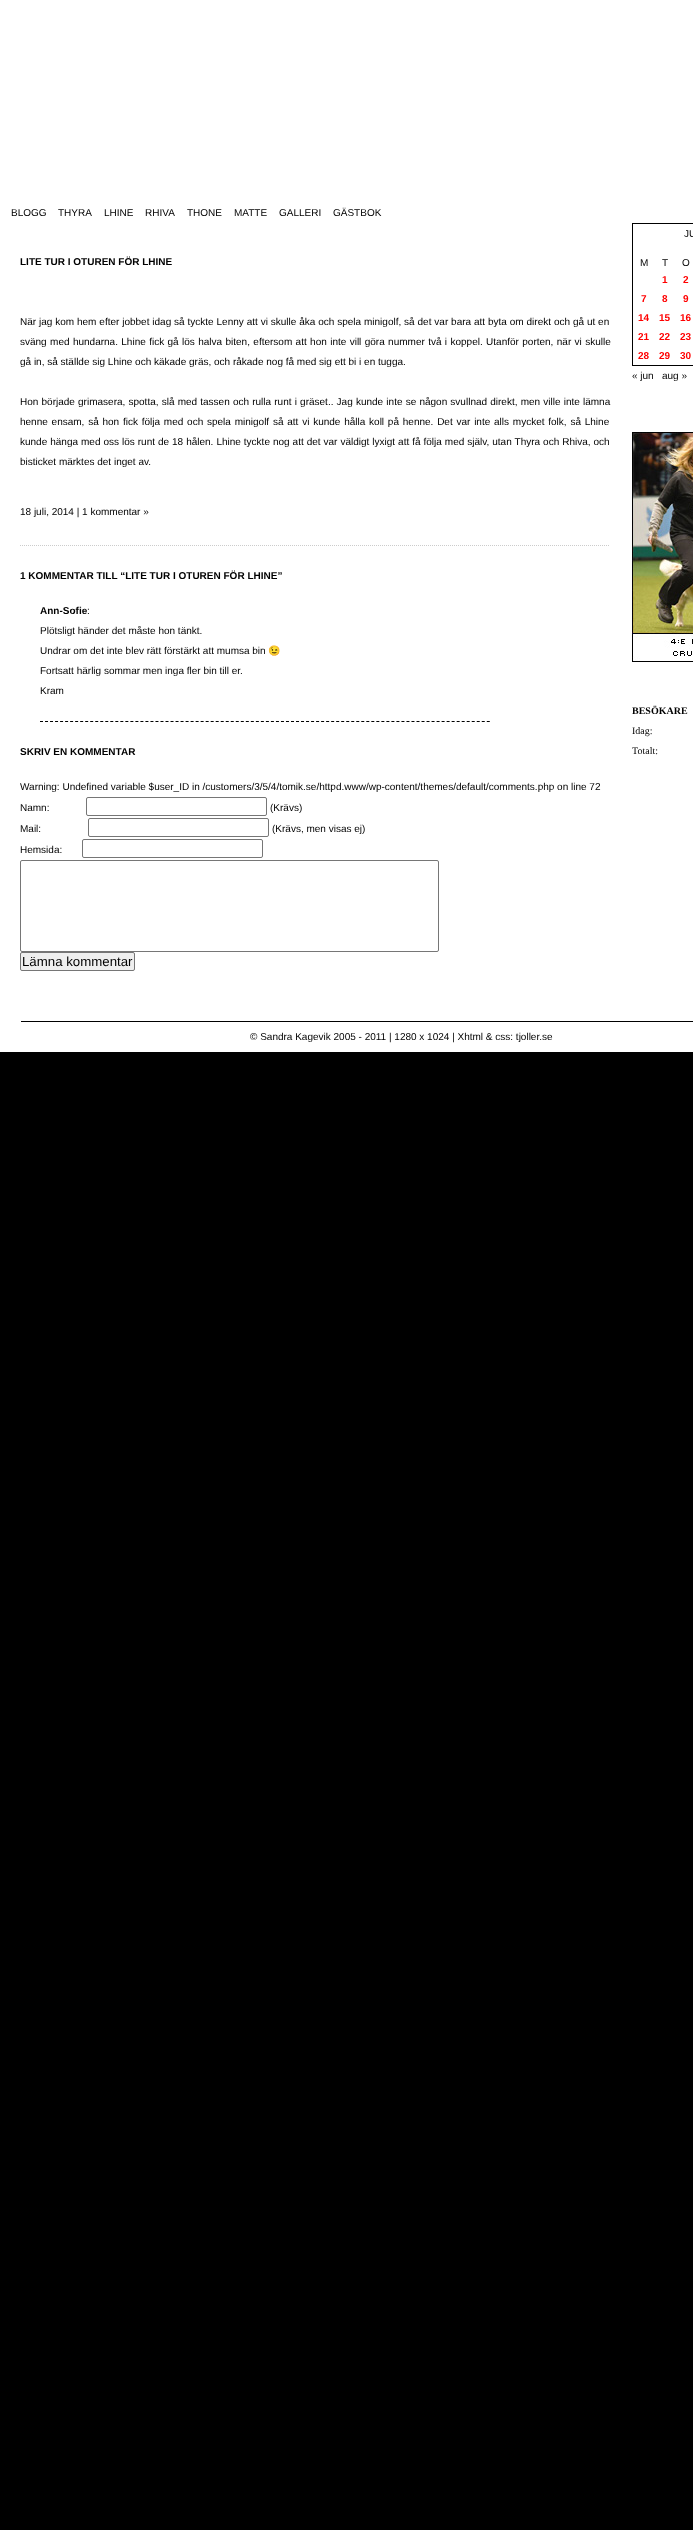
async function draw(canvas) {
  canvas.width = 693;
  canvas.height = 2530;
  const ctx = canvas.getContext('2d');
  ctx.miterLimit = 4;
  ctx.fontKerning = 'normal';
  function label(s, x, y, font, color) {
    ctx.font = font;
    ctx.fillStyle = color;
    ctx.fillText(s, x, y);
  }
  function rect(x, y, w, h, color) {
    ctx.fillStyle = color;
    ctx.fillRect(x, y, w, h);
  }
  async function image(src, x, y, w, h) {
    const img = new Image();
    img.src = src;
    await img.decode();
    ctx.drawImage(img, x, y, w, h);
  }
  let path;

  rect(0, 0, 693, 2530, '#000');
  rect(0, 0, 693, 1052, '#fff');
  label('BLOGG', 11, 216, '10px Liberation Sans', '#000');
  label('THYRA', 58, 216, '10px Liberation Sans', '#000');
  label('LHINE', 104, 216, '10px Liberation Sans', '#000');
  label('RHIVA', 145, 216, '10px Liberation Sans', '#000');
  label('THONE', 187, 216, '10px Liberation Sans', '#000');
  label('MATTE', 234, 216, '10px Liberation Sans', '#000');
  label('GALLERI', 279, 216, '10px Liberation Sans', '#000');
  label('GÄSTBOK', 333, 216, '10px Liberation Sans', '#000');
  label('LITE TUR I OTUREN FÖR LHINE', 20, 265, 'bold 10px Liberation Sans', '#000');
  ctx.wordSpacing = '0.1px';
  label('När jag kom hem efter jobbet idag så tyckte Lenny att vi skulle åka och spela minigolf, så det var bara att byta om direkt och gå ut en', 20, 325, '10px Liberation Sans', '#000');
  ctx.wordSpacing = '0.6px';
  label('sväng med hundarna. Lhine fick gå lös halva biten, eftersom att hon inte vill göra nummer två i koppel. Utanför porten, när vi skulle', 20, 345, '10px Liberation Sans', '#000');
  ctx.wordSpacing = '0px';
  label('gå in, så ställde sig Lhine och käkade gräs, och råkade nog få med sig ett bi i en tugga.', 20, 365, '10px Liberation Sans', '#000');
  ctx.wordSpacing = '0.4px';
  label('Hon började grimasera, spotta, slå med tassen och rulla runt i gräset.. Jag kunde inte se någon svullnad direkt, men ville inte lämna', 20, 405, '10px Liberation Sans', '#000');
  ctx.wordSpacing = '1px';
  label('henne ensam, så hon fick följa med och spela minigolf så att vi kunde hålla koll på henne. Det var inte alls mycket folk, så Lhine', 20, 425, '10px Liberation Sans', '#000');
  ctx.wordSpacing = '0.2px';
  label('kunde hänga med oss lös runt de 18 hålen. Lhine tyckte nog att det var väldigt lyxigt att få följa med själv, utan Thyra och Rhiva, och', 20, 445, '10px Liberation Sans', '#000');
  ctx.wordSpacing = '0px';
  label('bisticket märktes det inget av.', 20, 465, '10px Liberation Sans', '#000');
  path = new Path2D('M20 545.5H610');
  ctx.strokeStyle = '#ccc';
  ctx.setLineDash([1, 1]);
  ctx.stroke(path);
  label('18 juli, 2014 | 1 kommentar »', 20, 515, '10px Liberation Sans', '#000');
  label('1 KOMMENTAR TILL “LITE TUR I OTUREN FÖR LHINE”', 20, 579, 'bold 10px Liberation Sans', '#000');
  path = new Path2D('M40 721.5H490');
  ctx.strokeStyle = '#000';
  ctx.setLineDash([3, 2.02]);
  ctx.stroke(path);
  label('Ann-Sofie', 40, 614, 'bold 10px Liberation Sans', '#000');
  label(':', 87, 614, '10px Liberation Sans', '#000');
  label('Plötsligt händer det måste hon tänkt.', 40, 634, '10px Liberation Sans', '#000');
  label('Undrar om det inte blev rätt förstärkt att mumsa bin', 40, 654, '10px Liberation Sans', '#000');
  label('😉', 268, 654, '10px Noto Color Emoji', '#000');
  label('Fortsatt härlig sommar men inga fler bin till er.', 40, 674, '10px Liberation Sans', '#000');
  label('Kram', 40, 694, '10px Liberation Sans', '#000');
  label('SKRIV EN KOMMENTAR', 20, 755, 'bold 10px Liberation Sans', '#000');
  label('Warning: Undefined variable $user_ID in /customers/3/5/4/tomik.se/httpd.www/wp-content/themes/default/comments.php on line 72', 20, 790, '10px Liberation Sans', '#000');
  label('Namn:', 20, 811, '10px Liberation Sans', '#000');
  ctx.beginPath();
  ctx.roundRect(86.5, 797.5, 180, 18, 1.5);
  ctx.strokeStyle = '#767676';
  ctx.setLineDash([]);
  ctx.stroke();
  label('(Krävs)', 270, 811, '10px Liberation Sans', '#000');
  label('Mail:', 20, 832, '10px Liberation Sans', '#000');
  ctx.beginPath();
  ctx.roundRect(88.5, 818.5, 180, 18, 1.5);
  ctx.stroke();
  label('(Krävs, men visas ej)', 272, 832, '10px Liberation Sans', '#000');
  label('Hemsida:', 20, 853, '10px Liberation Sans', '#000');
  ctx.beginPath();
  ctx.roundRect(82.5, 839.5, 180, 18, 1.5);
  ctx.stroke();
  ctx.beginPath();
  ctx.roundRect(20.5, 860.5, 418, 91, 1.5);
  ctx.stroke();
  ctx.fillStyle = '#efefef';
  ctx.beginPath();
  ctx.roundRect(20.5, 952.5, 114, 18, 1.5);
  ctx.fill();
  ctx.stroke();
  label('Lämna kommentar', 22, 966, '13.25px Liberation Sans', '#000');
  rect(632, 223, 61, 1, '#000');
  rect(632, 365, 61, 1, '#000');
  rect(632, 223, 1, 143, '#000');
  label('JU', 684, 237, '10px Liberation Sans', '#000');
  label('M', 640, 266, '10px Liberation Sans', '#000');
  label('T', 662, 266, '10px Liberation Sans', '#000');
  label('O', 682, 266, '10px Liberation Sans', '#000');
  label('1', 662, 283, 'bold 10px Liberation Sans', '#f00');
  label('2', 683, 283, 'bold 10px Liberation Sans', '#f00');
  label('7', 641, 302, 'bold 10px Liberation Sans', '#f00');
  label('8', 662, 302, 'bold 10px Liberation Sans', '#f00');
  label('9', 683, 302, 'bold 10px Liberation Sans', '#f00');
  label('14', 638, 321, 'bold 10px Liberation Sans', '#f00');
  label('15', 659, 321, 'bold 10px Liberation Sans', '#f00');
  label('16', 680, 321, 'bold 10px Liberation Sans', '#f00');
  label('21', 638, 340, 'bold 10px Liberation Sans', '#f00');
  label('22', 659, 340, 'bold 10px Liberation Sans', '#f00');
  label('23', 680, 340, 'bold 10px Liberation Sans', '#f00');
  label('28', 638, 359, 'bold 10px Liberation Sans', '#f00');
  label('29', 659, 359, 'bold 10px Liberation Sans', '#f00');
  label('30', 680, 359, 'bold 10px Liberation Sans', '#f00');
  label('« jun', 632, 379, '10px Liberation Sans', '#000');
  label('aug »', 662, 379, '10px Liberation Sans', '#000');
  await image('assets/img1.png', 632, 432, 61, 230);
  label('BESÖKARE', 632, 714, 'bold 10px Liberation Serif', '#000');
  label('Idag:', 632, 734, '10px Liberation Serif', '#000');
  label('Totalt:', 632, 754, '10px Liberation Serif', '#000');
  rect(21, 1021, 672, 1, '#000');
  label('© Sandra Kagevik 2005 - 2011 | 1280 x 1024 | Xhtml & css: tjoller.se', 250, 1040, '10px Liberation Sans', '#000');
}

draw(document.querySelector('canvas'));
